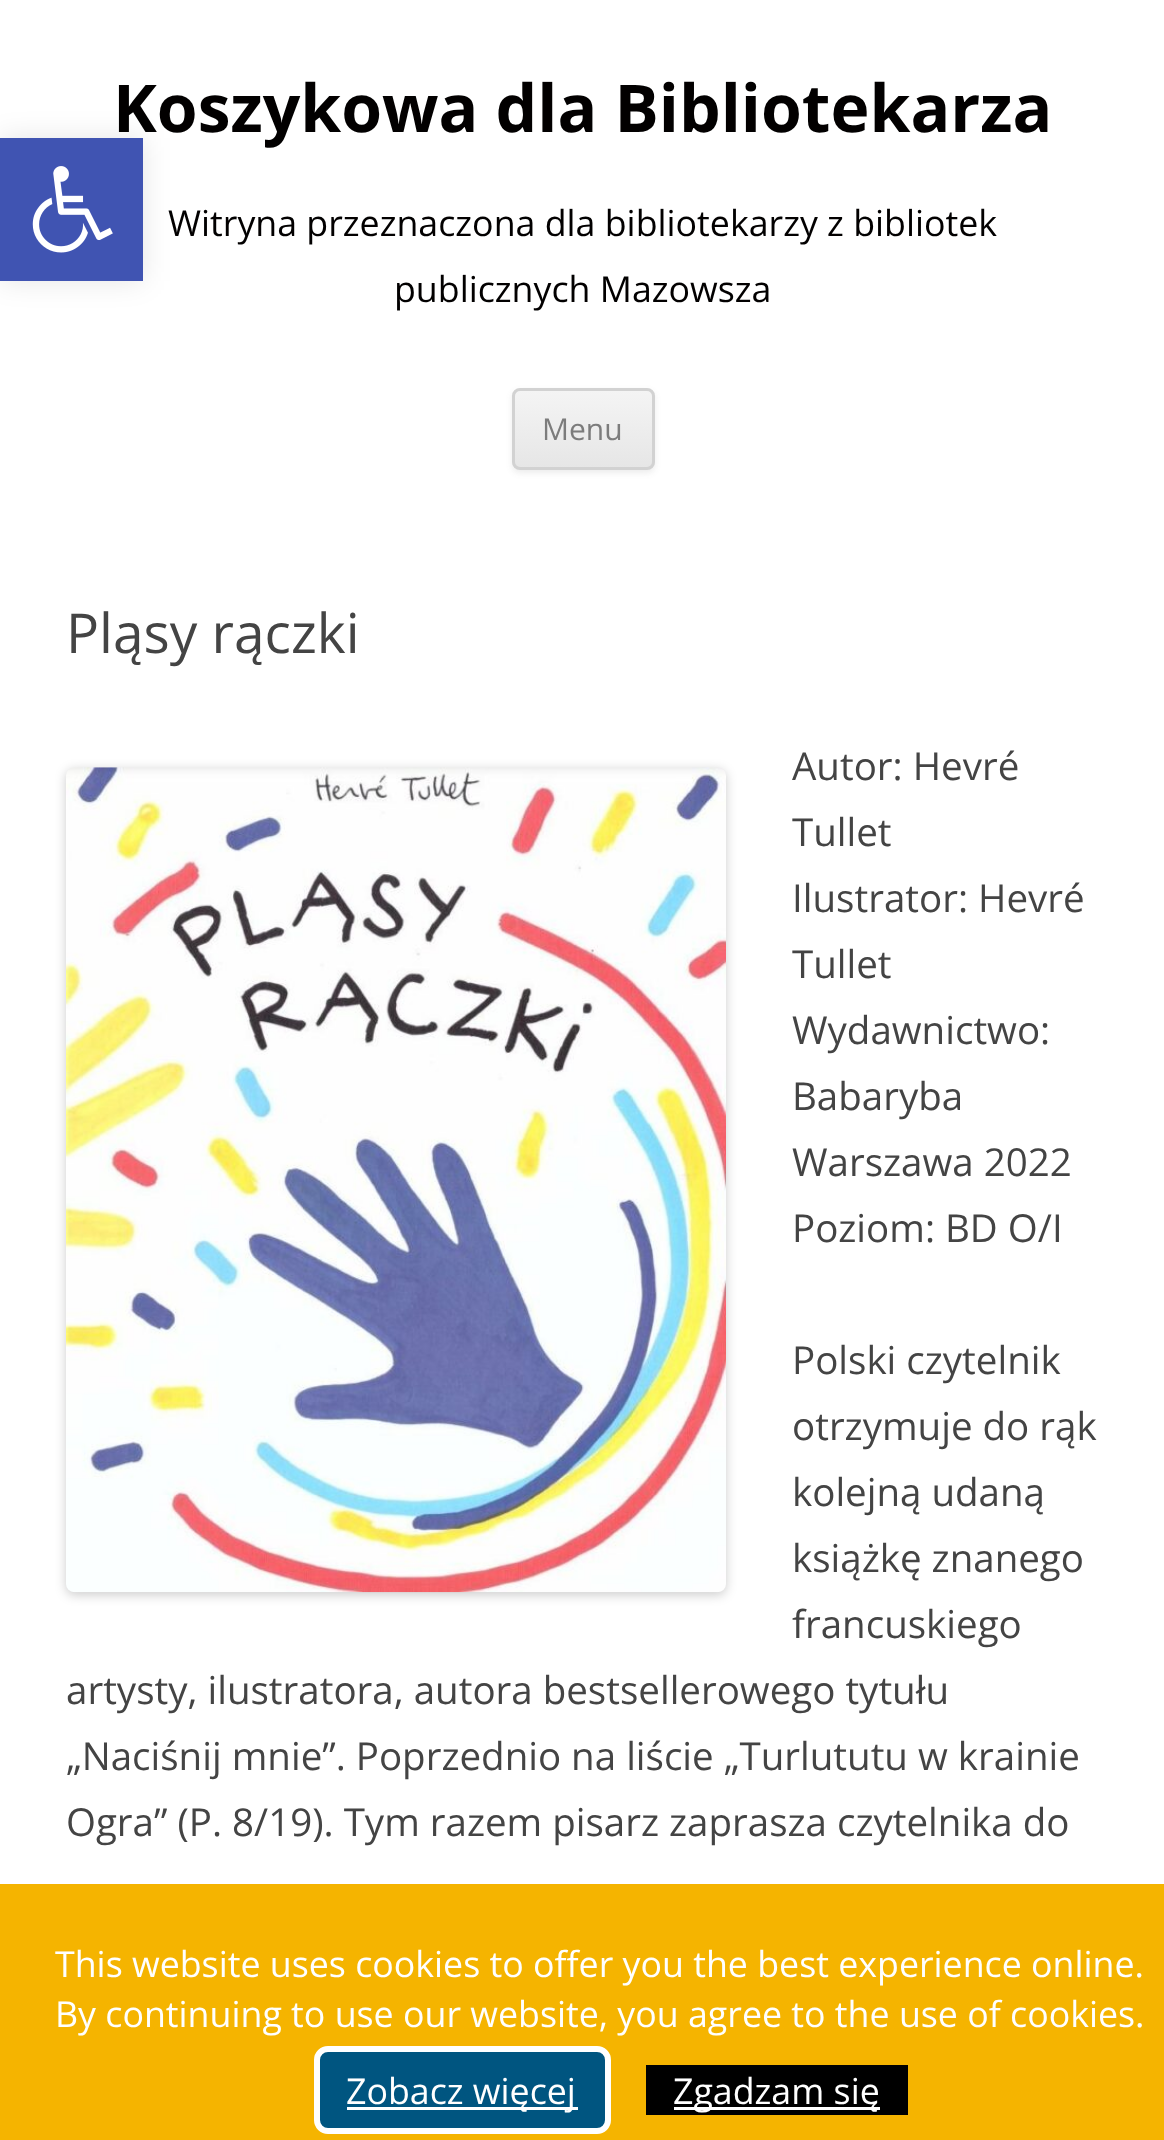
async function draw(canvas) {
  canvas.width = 1164;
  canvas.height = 2140;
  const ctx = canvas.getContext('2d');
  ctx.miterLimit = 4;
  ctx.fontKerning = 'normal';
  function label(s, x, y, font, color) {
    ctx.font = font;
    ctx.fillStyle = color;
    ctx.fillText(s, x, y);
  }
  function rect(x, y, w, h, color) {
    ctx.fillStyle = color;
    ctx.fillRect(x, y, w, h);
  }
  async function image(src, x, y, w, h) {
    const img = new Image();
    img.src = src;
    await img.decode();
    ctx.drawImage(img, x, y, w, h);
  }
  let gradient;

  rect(0, 0, 1164, 2140, '#fff');
  label('Koszykowa dla Bibliotekarza', 113, 132, 'bold 66px Open Sans', '#020000');
  label('Witryna przeznaczona dla bibliotekarzy z bibliotek', 168, 236, '35.75px Open Sans', '#020000');
  label('publicznych Mazowsza', 394, 302, '35.75px Open Sans', '#020000');
  ctx.fillStyle = '#4040401a';
  ctx.filter = 'blur(3px)';
  ctx.beginPath();
  ctx.roundRect(512, 391, 143, 82, 8);
  ctx.fill();
  ctx.filter = 'none';
  ctx.save();
  ctx.beginPath();
  ctx.roundRect(512, 388, 143, 82, 8);
  ctx.clip();
  gradient = ctx.createLinearGradient(583, 391, 583, 468);
  gradient.addColorStop(0, '#f4f4f4');
  gradient.addColorStop(1, '#e6e6e6');
  ctx.fillStyle = gradient;
  ctx.fillRect(512, 391, 143, 77);
  ctx.restore();
  ctx.beginPath();
  ctx.roundRect(513.5, 389.5, 140, 79, 6.5);
  ctx.strokeStyle = '#d2d2d2';
  ctx.lineWidth = 3;
  ctx.stroke();
  label('Menu', 542, 440, '30px Open Sans', '#7c7c7c');
  label('Pląsy rączki', 66, 653, '55px Open Sans', '#444');
  ctx.fillStyle = '#00000033';
  ctx.filter = 'blur(5.5px)';
  ctx.beginPath();
  ctx.roundRect(66, 770, 660, 825, 8);
  ctx.fill();
  ctx.filter = 'none';
  await image('assets/img1.png', 66, 767, 660, 826);
  label('Autor: Hevré', 792, 780, '38.5px Open Sans', '#444');
  label('Tullet', 792, 846, '38.5px Open Sans', '#444');
  label('Ilustrator: Hevré', 792, 912, '38.5px Open Sans', '#444');
  label('Tullet', 792, 978, '38.5px Open Sans', '#444');
  label('Wydawnictwo:', 792, 1044, '38.5px Open Sans', '#444');
  label('Babaryba', 792, 1110, '38.5px Open Sans', '#444');
  label('Warszawa 2022', 792, 1176, '38.5px Open Sans', '#444');
  label('Poziom: BD O/I', 792, 1242, '38.5px Open Sans', '#444');
  label('Polski czytelnik', 792, 1374, '38.5px Open Sans', '#444');
  label('otrzymuje do rąk', 792, 1440, '38.5px Open Sans', '#444');
  label('kolejną udaną', 792, 1506, '38.5px Open Sans', '#444');
  label('książkę znanego', 792, 1572, '38.5px Open Sans', '#444');
  label('francuskiego', 792, 1638, '38.5px Open Sans', '#444');
  label('artysty, ilustratora, autora bestsellerowego tytułu', 66, 1704, '38.5px Open Sans', '#444');
  label('„Naciśnij mnie”. Poprzednio na liście „Turlututu w krainie', 66, 1770, '38.5px Open Sans', '#444');
  label('Ogra” (P. 8/19). Tym razem pisarz zaprasza czytelnika do', 66, 1836, '38.5px Open Sans', '#444');
  ctx.fillStyle = '#0000001a';
  ctx.filter = 'blur(14px)';
  ctx.beginPath();
  ctx.rect(0, 138, 143, 143);
  ctx.fill();
  ctx.filter = 'none';
  rect(0, 138, 143, 143, '#4054b2');
  await image('assets/img2.png', 32, 166, 81, 87);
  rect(0, 1884, 1164, 256, '#f5b400');
  label('This website uses cookies to offer you the best experience online.', 55, 1977, '35.75px Open Sans', '#fff');
  label('By continuing to use our website, you agree to the use of cookies.', 55, 2027, '35.75px Open Sans', '#fff');
  ctx.fillStyle = '#005580';
  ctx.beginPath();
  ctx.roundRect(317, 2049, 291, 82, 11);
  ctx.fill();
  ctx.strokeStyle = '#fff';
  ctx.lineWidth = 6;
  ctx.stroke();
  rect(347, 2107, 231, 3, '#fff');
  label('Zobacz więcej', 346, 2104, '35.75px Open Sans', '#fff');
  rect(646, 2065, 262, 50, '#000');
  rect(674, 2107, 206, 3, '#fff');
  label('Zgadzam się', 673, 2104, '35.75px Open Sans', '#fff');
}

draw(document.querySelector('canvas'));
